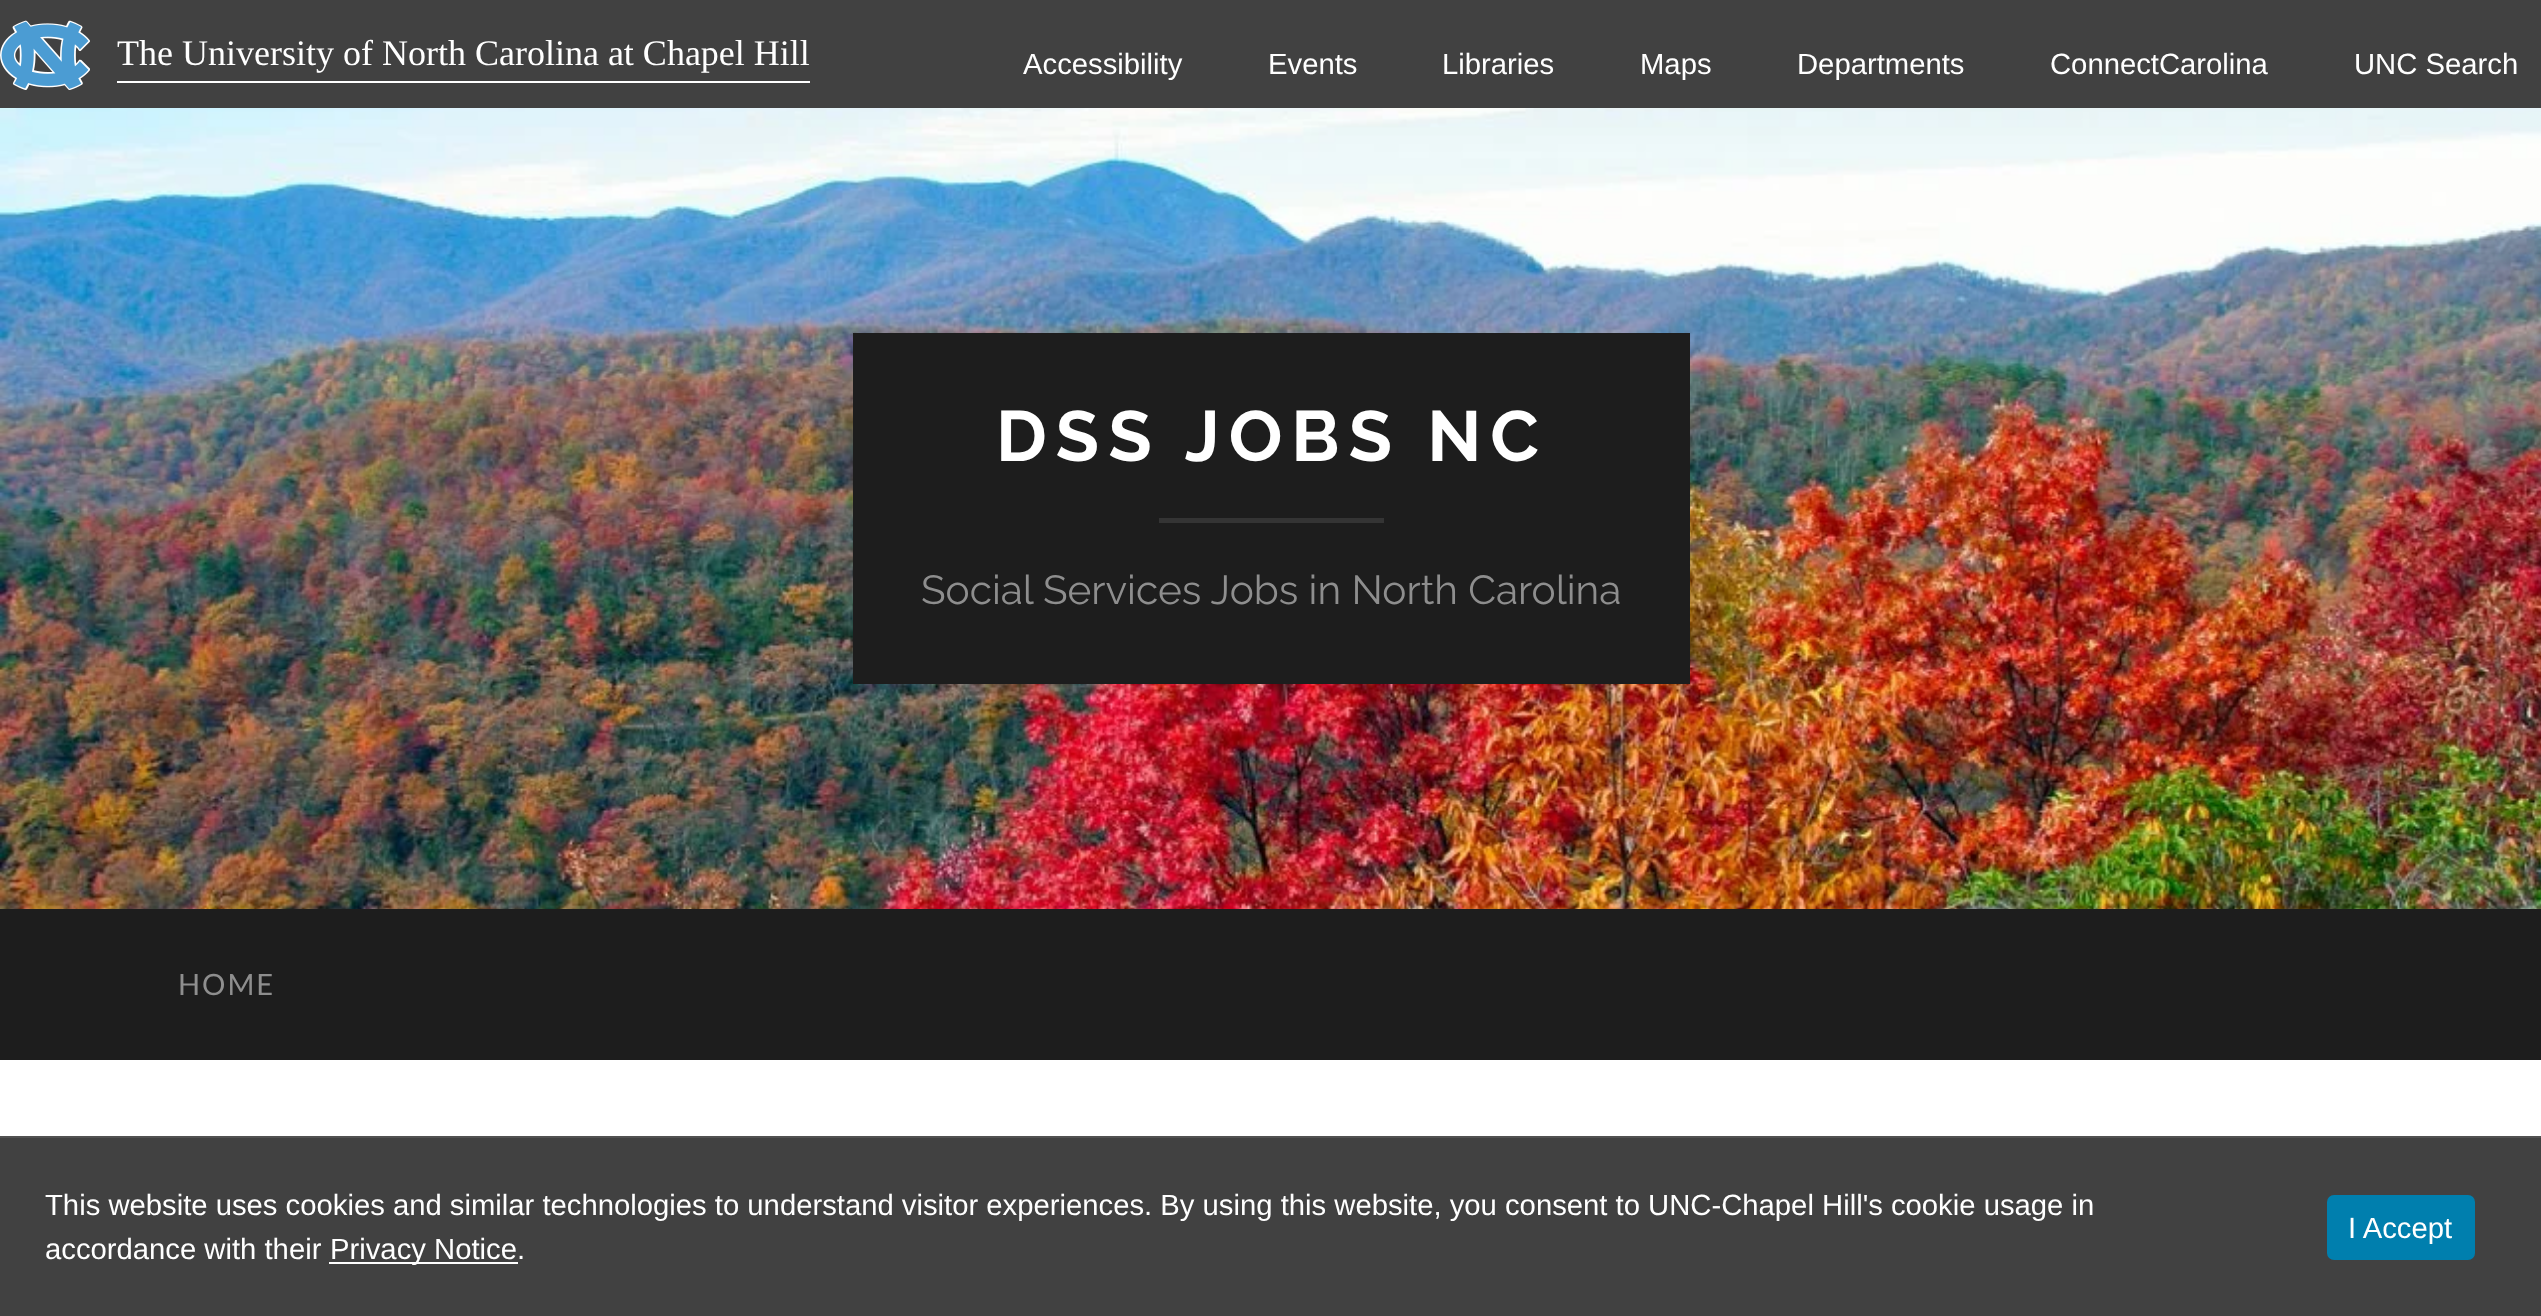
async function draw(canvas) {
  canvas.width = 2541;
  canvas.height = 1316;
  const ctx = canvas.getContext('2d');
  ctx.miterLimit = 4;
  ctx.fontKerning = 'normal';
  function label(s, x, y, font, color) {
    ctx.font = font;
    ctx.fillStyle = color;
    ctx.fillText(s, x, y);
  }
  function rect(x, y, w, h, color) {
    ctx.fillStyle = color;
    ctx.fillRect(x, y, w, h);
  }
  function roundedRect(x, y, w, h, r, color) {
    ctx.fillStyle = color;
    ctx.beginPath();
    ctx.roundRect(x, y, w, h, r);
    ctx.fill();
  }
  async function image(src, x, y, w, h) {
    const img = new Image();
    img.src = src;
    await img.decode();
    ctx.drawImage(img, x, y, w, h);
  }

  rect(0, 0, 2541, 1316, '#fff');
  rect(0, 0, 2541, 108, '#414141');
  await image('assets/img1.png', 0, 20, 90, 70);
  label('The University of North Carolina at Chapel Hill', 117, 65, '36px Liberation Serif', '#fff');
  rect(117, 81, 693, 2, '#fff');
  label('Accessibility', 1023, 74, '29.25px Liberation Sans', '#fff');
  label('Events', 1268, 74, '29.25px Liberation Sans', '#fff');
  label('Libraries', 1442, 74, '29.25px Liberation Sans', '#fff');
  label('Maps', 1640, 74, '29.25px Liberation Sans', '#fff');
  label('Departments', 1797, 74, '29.25px Liberation Sans', '#fff');
  label('ConnectCarolina', 2050, 74, '29.25px Liberation Sans', '#fff');
  label('UNC Search', 2354, 74, '29.25px Liberation Sans', '#fff');
  await image('assets/img2.png', 0, 108, 2541, 801);
  rect(853, 333, 837, 351, '#1d1d1d');
  ctx.letterSpacing = '9px';
  label('DSS JOBS NC', 996, 461, '100 71px Raleway', '#fff');
  rect(1159, 518, 225, 5, '#343434');
  ctx.letterSpacing = '0px';
  label('Social Services Jobs in North Carolina', 921, 604, '100 40.5px "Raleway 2"', '#8e8e8e');
  rect(0, 909, 2541, 151, '#1d1d1d');
  ctx.letterSpacing = '2px';
  label('HOME', 178, 995, '29.25px Lato', '#8e8e8e');
  rect(0, 1138, 2541, 178, '#414141');
  rect(0, 1136, 2541, 2, '#515151');
  ctx.letterSpacing = '0px';
  label('This website uses cookies and similar technologies to understand visitor experiences. By using this website, you consent to UNC-Chapel Hill\'s cookie usage in', 45, 1215, '29.25px Liberation Sans', '#fff');
  label('accordance with their', 45, 1259, '29.25px Liberation Sans', '#fff');
  rect(329, 1262, 189, 2, '#fff');
  label('Privacy Notice.', 330, 1259, '29.25px Liberation Sans', '#fff');
  roundedRect(2327, 1195, 148, 65, 7, '#007fae');
  label('I Accept', 2348, 1238, '29.25px Liberation Sans', '#fff');
}

draw(document.querySelector('canvas'));
